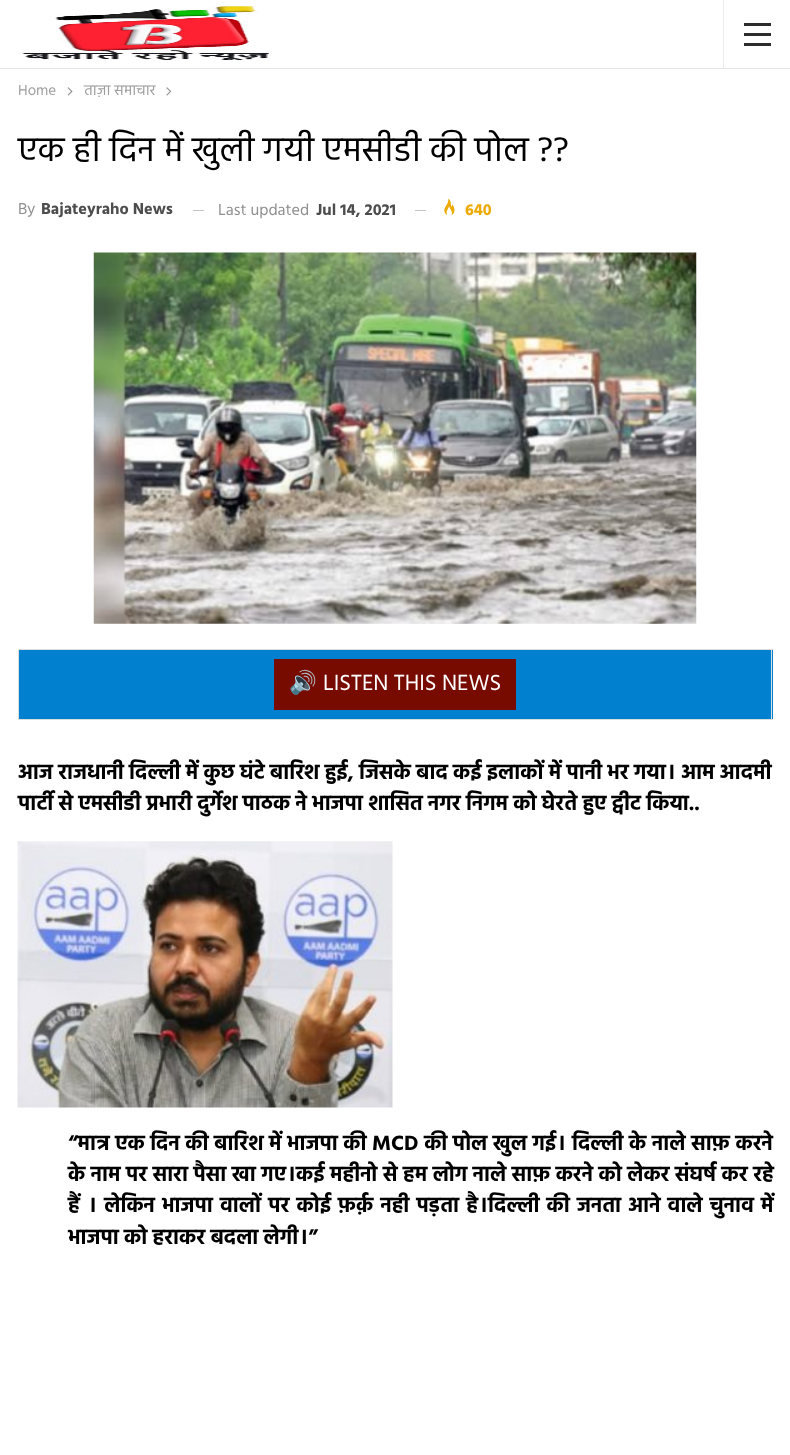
async function draw(canvas) {
  canvas.width = 790;
  canvas.height = 1455;
  const ctx = canvas.getContext('2d');
  ctx.miterLimit = 4;
  ctx.fontKerning = 'normal';
  function label(s, x, y, font, color) {
    ctx.font = font;
    ctx.fillStyle = color;
    ctx.fillText(s, x, y);
  }
  function rect(x, y, w, h, color) {
    ctx.fillStyle = color;
    ctx.fillRect(x, y, w, h);
  }
  async function image(src, x, y, w, h) {
    const img = new Image();
    img.src = src;
    await img.decode();
    ctx.drawImage(img, x, y, w, h);
  }

  rect(0, 0, 790, 1455, '#fff');
  rect(0, 68, 790, 1, '#e5e5e5');
  await image('assets/img1.png', 22, 6, 247, 55);
  rect(723, 0, 1, 68, '#ededed');
  rect(744, 33, 27, 3, '#2c2c2c');
  rect(744, 23, 27, 3, '#2c2c2c');
  rect(744, 43, 27, 3, '#2c2c2c');
  label('Home', 18, 95, '15px Hind', '#9e9e9e');
  await image('assets/img2.png', 67, 87, 6, 9);
  label('ताज़ा समाचार', 84, 95, '15px Hind', '#9e9e9e');
  await image('assets/img3.png', 166, 87, 6, 9);
  label('एक ही दिन में खुली गयी एमसीडी की पोल ??', 18, 161, '35px Hind', '#000');
  label('By', 18, 214, '16.25px Hind', '#8f8f8f');
  label('Bajateyraho News', 41, 214, 'bold 16.25px Hind', '#4d4d4d');
  rect(193, 210, 11, 1, '#c4c4c4');
  label('Last updated', 218, 215, '16.25px Hind', '#8f8f8f');
  label('Jul 14, 2021', 316, 215, 'bold 16.25px Hind', '#4d4d4d');
  rect(415, 210, 11, 1, '#c4c4c4');
  await image('assets/img4.png', 444, 198, 11, 17);
  label('640', 465, 215, 'bold 16.25px Hind', '#edaa02');
  await image('assets/img5.png', 93, 252, 604, 372);
  rect(18, 649, 755, 1, '#ddd');
  rect(19, 650, 754, 69, '#0080ce');
  rect(771, 649, 1, 71, '#ddd');
  rect(18, 719, 755, 1, '#ddd');
  rect(18, 649, 1, 71, '#ddd');
  rect(274, 659, 242, 51, '#770b00');
  label('🔊', 289, 690, '22.5px Noto Color Emoji', '#fff');
  label('LISTEN THIS NEWS', 323, 690, '22.5px Hind', '#fff');
  label('आज राजधानी दिल्ली में कुछ घंटे बारिश हुई, जिसके बाद कई इलाकों में पानी भर गया। आम आदमी', 18, 779, 'bold 21.25px Hind', '#000');
  label('पार्टी से एमसीडी प्रभारी दुर्गेश पाठक ने भाजपा शासित नगर निगम को घेरते हुए ट्वीट किया..', 18, 810, 'bold 21.25px Hind', '#000');
  await image('assets/img6.png', 17, 841, 376, 267);
  ctx.wordSpacing = '0.25px';
  label('“मात्र एक दिन की बारिश में भाजपा की MCD की पोल खुल गई।', 68, 1150, 'bold 21.25px Hind', '#000');
  ctx.wordSpacing = '0.5px';
  label('दिल्ली के नाले साफ़ करने', 572, 1150, 'bold 21.25px Hind', '#000');
  ctx.wordSpacing = '0.25px';
  label('के नाम पर सारा पैसा खा गए।कई महीनो से हम लोग नाले साफ़ करने को लेकर संघर्ष कर रहे', 68, 1181, 'bold 21.25px Hind', '#000');
  ctx.wordSpacing = '1.9px';
  label('हैं । लेकिन भाजपा वालों पर कोई फ़र्क़ नही पड़ता है।दिल्ली की जनता आने वाले चुनाव में', 68, 1212, 'bold 21.25px Hind', '#000');
  ctx.wordSpacing = '0px';
  label('भाजपा को हराकर बदला लेगी।”', 68, 1244, 'bold 21.25px Hind', '#000');
}

draw(document.querySelector('canvas'));
